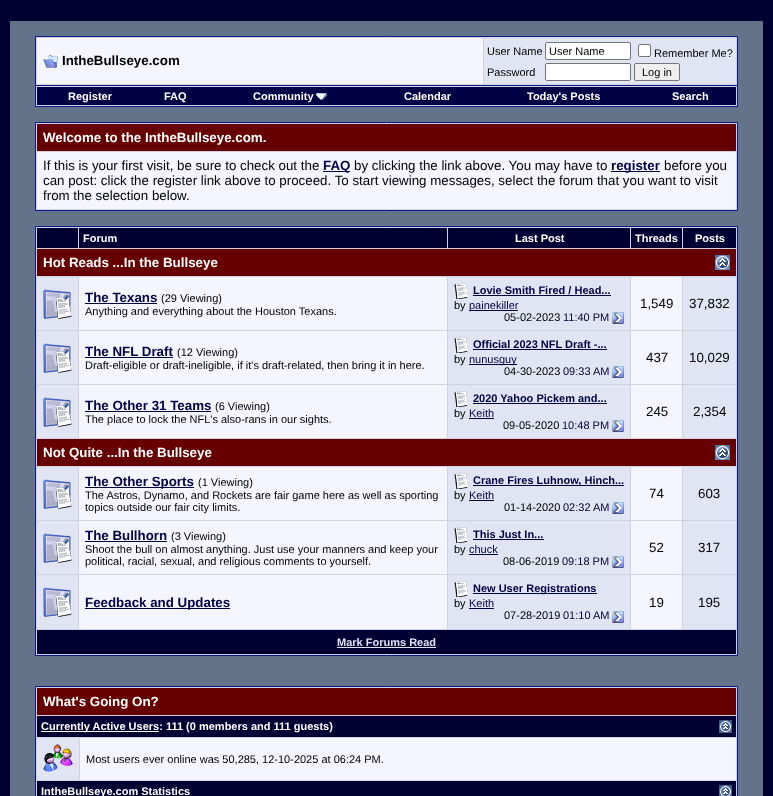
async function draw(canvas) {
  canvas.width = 773;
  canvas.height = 796;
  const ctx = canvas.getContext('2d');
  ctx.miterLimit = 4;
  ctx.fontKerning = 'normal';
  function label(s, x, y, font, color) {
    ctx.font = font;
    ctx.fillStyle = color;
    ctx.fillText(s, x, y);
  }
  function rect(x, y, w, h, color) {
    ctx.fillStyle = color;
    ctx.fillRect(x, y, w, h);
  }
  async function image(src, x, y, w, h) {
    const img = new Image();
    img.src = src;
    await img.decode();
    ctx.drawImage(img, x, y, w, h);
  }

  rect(0, 0, 773, 796, '#003');
  rect(10, 21, 753, 775, '#63748a');
  ctx.fillStyle = '#d1d1e1';
  ctx.beginPath();
  ctx.rect(35.5, 36.5, 702, 49);
  ctx.fill();
  ctx.strokeStyle = '#0b198c';
  ctx.stroke();
  rect(37, 38, 446, 46, '#f5f5ff');
  await image('assets/img1.png', 43, 55, 15, 13);
  label('IntheBullseye.com', 62, 65, 'bold 13.33px Liberation Sans', '#000');
  rect(484, 38, 252, 46, '#e1e4f2');
  label('User Name', 487, 55, '11px Liberation Sans', '#000');
  ctx.fillStyle = '#fff';
  ctx.beginPath();
  ctx.roundRect(545.5, 42.5, 85, 17, 1.5);
  ctx.fill();
  ctx.strokeStyle = '#767676';
  ctx.stroke();
  label('User Name', 549, 55, '11px Liberation Sans', '#000');
  ctx.fillStyle = '#fff';
  ctx.beginPath();
  ctx.roundRect(638.5, 44.5, 12, 12, 1.5);
  ctx.fill();
  ctx.stroke();
  label('Remember Me?', 654, 57, '11px Liberation Sans', '#000');
  label('Password', 487, 76, '11px Liberation Sans', '#000');
  ctx.fillStyle = '#fff';
  ctx.beginPath();
  ctx.roundRect(545.5, 63.5, 85, 17, 1.5);
  ctx.fill();
  ctx.stroke();
  ctx.fillStyle = '#efefef';
  ctx.beginPath();
  ctx.roundRect(634.5, 63.5, 45, 17, 1.5);
  ctx.fill();
  ctx.stroke();
  label('Log in', 642, 76, '11px Liberation Sans', '#000');
  rect(36, 86, 701, 20, '#d1d1e1');
  rect(737, 86, 1, 21, '#0b198c');
  rect(35, 106, 703, 1, '#0b198c');
  rect(35, 86, 1, 21, '#0b198c');
  rect(37, 87, 699, 18, '#004');
  label('Register', 68, 100, 'bold 11px Liberation Sans', '#fff');
  label('FAQ', 164, 100, 'bold 11px Liberation Sans', '#fff');
  label('Community', 253, 100, 'bold 11px Liberation Sans', '#fff');
  await image('assets/img2.png', 316, 93, 11, 7);
  label('Calendar', 404, 100, 'bold 11px Liberation Sans', '#fff');
  label('Today\'s Posts', 527, 100, 'bold 11px Liberation Sans', '#fff');
  label('Search', 672, 100, 'bold 11px Liberation Sans', '#fff');
  ctx.fillStyle = '#d1d1e1';
  ctx.beginPath();
  ctx.rect(35.5, 122.5, 702, 88);
  ctx.fill();
  ctx.strokeStyle = '#0b198c';
  ctx.stroke();
  rect(37, 124, 699, 27, '#600');
  label('Welcome to the IntheBullseye.com.', 43, 142, 'bold 13.33px Liberation Sans', '#fff');
  rect(37, 152, 699, 57, '#f5f5ff');
  label('If this is your first visit, be sure to check out the', 43, 170, '13.33px Liberation Sans', '#000');
  rect(323, 171, 27, 1, '#004');
  label('FAQ', 323, 170, 'bold 13.33px Liberation Sans', '#004');
  label('by clicking the link above. You may have to', 354, 170, '13.33px Liberation Sans', '#000');
  rect(611, 171, 49, 1, '#004');
  label('register', 611, 170, 'bold 13.33px Liberation Sans', '#004');
  label('before you', 664, 170, '13.33px Liberation Sans', '#000');
  label('can post: click the register link above to proceed. To start viewing messages, select the forum that you want to visit', 43, 185, '13.33px Liberation Sans', '#000');
  label('from the selection below.', 43, 200, '13.33px Liberation Sans', '#000');
  ctx.fillStyle = '#d1d1e1';
  ctx.beginPath();
  ctx.rect(35.5, 226.5, 702, 429);
  ctx.fill();
  ctx.stroke();
  rect(37, 228, 41, 20, '#003');
  rect(79, 228, 368, 20, '#003');
  label('Forum', 83, 242, 'bold 11px Liberation Sans', '#fff');
  rect(448, 228, 182, 20, '#003');
  label('Last Post', 515, 242, 'bold 11px Liberation Sans', '#fff');
  rect(631, 228, 51, 20, '#003');
  label('Threads', 635, 242, 'bold 11px Liberation Sans', '#fff');
  rect(683, 228, 53, 20, '#003');
  label('Posts', 695, 242, 'bold 11px Liberation Sans', '#fff');
  rect(37, 249, 699, 27, '#600');
  label('Hot Reads ...In the Bullseye', 43, 267, 'bold 13.33px Liberation Sans', '#fff');
  await image('assets/img3.png', 715, 255, 15, 15);
  rect(37, 277, 41, 53, '#e1e4f2');
  await image('assets/img4.png', 43, 289, 29, 30);
  rect(79, 277, 368, 53, '#f5f5ff');
  label('The Texans', 85, 302, 'bold 13.33px Liberation Sans', '#004');
  rect(85, 303, 72, 1, '#004');
  label('(29 Viewing)', 161, 302, '11px Liberation Sans', '#000');
  label('Anything and everything about the Houston Texans.', 85, 315, '11px Liberation Sans', '#000');
  rect(448, 277, 182, 53, '#e1e4f2');
  await image('assets/img5.png', 454, 283, 15, 16);
  label('Lovie Smith Fired / Head...', 473, 294, 'bold 11px Liberation Sans', '#004');
  rect(473, 295, 138, 1, '#004');
  label('by', 454, 309, '11px Liberation Sans', '#000');
  rect(469, 310, 49, 1, '#004');
  label('painekiller', 469, 309, '11px Liberation Sans', '#004');
  label('05-02-2023', 504, 321, '11px Liberation Sans', '#000');
  label('11:40 PM', 563, 321, '11px Liberation Sans', '#003');
  await image('assets/img6.png', 612, 312, 12, 12);
  rect(631, 277, 51, 53, '#f5f5ff');
  label('1,549', 640, 308, '13.33px Liberation Sans', '#000');
  rect(683, 277, 53, 53, '#e1e4f2');
  label('37,832', 689, 308, '13.33px Liberation Sans', '#000');
  rect(37, 331, 41, 53, '#e1e4f2');
  await image('assets/img4.png', 43, 343, 29, 30);
  rect(79, 331, 368, 53, '#f5f5ff');
  label('The NFL Draft', 85, 356, 'bold 13.33px Liberation Sans', '#004');
  rect(85, 357, 88, 1, '#004');
  label('(12 Viewing)', 177, 356, '11px Liberation Sans', '#000');
  label('Draft-eligible or draft-ineligible, if it\'s draft-related, then bring it in here.', 85, 369, '11px Liberation Sans', '#000');
  rect(448, 331, 182, 53, '#e1e4f2');
  await image('assets/img5.png', 454, 337, 15, 16);
  label('Official 2023 NFL Draft -...', 473, 348, 'bold 11px Liberation Sans', '#004');
  rect(473, 349, 134, 1, '#004');
  label('by', 454, 363, '11px Liberation Sans', '#000');
  rect(469, 364, 48, 1, '#004');
  label('nunusguy', 469, 363, '11px Liberation Sans', '#004');
  label('04-30-2023', 504, 375, '11px Liberation Sans', '#000');
  label('09:33 AM', 563, 375, '11px Liberation Sans', '#003');
  await image('assets/img6.png', 612, 366, 12, 12);
  rect(631, 331, 51, 53, '#f5f5ff');
  label('437', 646, 362, '13.33px Liberation Sans', '#000');
  rect(683, 331, 53, 53, '#e1e4f2');
  label('10,029', 689, 362, '13.33px Liberation Sans', '#000');
  rect(37, 385, 41, 53, '#e1e4f2');
  await image('assets/img4.png', 43, 397, 29, 30);
  rect(79, 385, 368, 53, '#f5f5ff');
  label('The Other 31 Teams', 85, 410, 'bold 13.33px Liberation Sans', '#004');
  rect(85, 411, 126, 1, '#004');
  label('(6 Viewing)', 215, 410, '11px Liberation Sans', '#000');
  label('The place to lock the NFL\'s also-rans in our sights.', 85, 423, '11px Liberation Sans', '#000');
  rect(448, 385, 182, 53, '#e1e4f2');
  await image('assets/img5.png', 454, 391, 15, 16);
  label('2020 Yahoo Pickem and...', 473, 402, 'bold 11px Liberation Sans', '#004');
  rect(473, 403, 134, 1, '#004');
  label('by', 454, 417, '11px Liberation Sans', '#000');
  label('Keith', 469, 417, '11px Liberation Sans', '#004');
  rect(469, 418, 25, 1, '#004');
  label('09-05-2020', 503, 429, '11px Liberation Sans', '#000');
  label('10:48 PM', 562, 429, '11px Liberation Sans', '#003');
  await image('assets/img6.png', 612, 420, 12, 12);
  rect(631, 385, 51, 53, '#f5f5ff');
  label('245', 646, 416, '13.33px Liberation Sans', '#000');
  rect(683, 385, 53, 53, '#e1e4f2');
  label('2,354', 693, 416, '13.33px Liberation Sans', '#000');
  rect(37, 439, 699, 27, '#600');
  label('Not Quite ...In the Bullseye', 43, 457, 'bold 13.33px Liberation Sans', '#fff');
  await image('assets/img3.png', 715, 445, 15, 15);
  rect(37, 467, 41, 53, '#e1e4f2');
  await image('assets/img4.png', 43, 479, 29, 30);
  rect(79, 467, 368, 53, '#f5f5ff');
  rect(85, 487, 109, 1, '#004');
  label('The Other Sports', 85, 486, 'bold 13.33px Liberation Sans', '#004');
  label('(1 Viewing)', 198, 486, '11px Liberation Sans', '#000');
  label('The Astros, Dynamo, and Rockets are fair game here as well as sporting', 85, 499, '11px Liberation Sans', '#000');
  label('topics outside our fair city limits.', 85, 511, '11px Liberation Sans', '#000');
  rect(448, 467, 182, 53, '#e1e4f2');
  await image('assets/img5.png', 454, 473, 15, 16);
  rect(473, 485, 151, 1, '#004');
  label('Crane Fires Luhnow, Hinch...', 473, 484, 'bold 11px Liberation Sans', '#004');
  label('by', 454, 499, '11px Liberation Sans', '#000');
  label('Keith', 469, 499, '11px Liberation Sans', '#004');
  rect(469, 500, 25, 1, '#004');
  label('01-14-2020', 504, 511, '11px Liberation Sans', '#000');
  label('02:32 AM', 563, 511, '11px Liberation Sans', '#003');
  await image('assets/img6.png', 612, 502, 12, 12);
  rect(631, 467, 51, 53, '#f5f5ff');
  label('74', 649, 498, '13.33px Liberation Sans', '#000');
  rect(683, 467, 53, 53, '#e1e4f2');
  label('603', 698, 498, '13.33px Liberation Sans', '#000');
  rect(37, 521, 41, 53, '#e1e4f2');
  await image('assets/img4.png', 43, 533, 29, 30);
  rect(79, 521, 368, 53, '#f5f5ff');
  label('The Bullhorn', 85, 540, 'bold 13.33px Liberation Sans', '#004');
  rect(85, 541, 82, 1, '#004');
  label('(3 Viewing)', 171, 540, '11px Liberation Sans', '#000');
  label('Shoot the bull on almost anything. Just use your manners and keep your', 85, 553, '11px Liberation Sans', '#000');
  label('political, racial, sexual, and religious comments to yourself.', 85, 565, '11px Liberation Sans', '#000');
  rect(448, 521, 182, 53, '#e1e4f2');
  await image('assets/img5.png', 454, 527, 15, 16);
  label('This Just In...', 473, 538, 'bold 11px Liberation Sans', '#004');
  rect(473, 539, 71, 1, '#004');
  label('by', 454, 553, '11px Liberation Sans', '#000');
  label('chuck', 469, 553, '11px Liberation Sans', '#004');
  rect(469, 554, 29, 1, '#004');
  label('08-06-2019', 503, 565, '11px Liberation Sans', '#000');
  label('09:18 PM', 562, 565, '11px Liberation Sans', '#003');
  await image('assets/img6.png', 612, 556, 12, 12);
  rect(631, 521, 51, 53, '#f5f5ff');
  label('52', 649, 552, '13.33px Liberation Sans', '#000');
  rect(683, 521, 53, 53, '#e1e4f2');
  label('317', 698, 552, '13.33px Liberation Sans', '#000');
  rect(37, 575, 41, 54, '#e1e4f2');
  await image('assets/img4.png', 43, 587, 29, 30);
  rect(79, 575, 368, 54, '#f5f5ff');
  rect(85, 608, 145, 1, '#004');
  label('Feedback and Updates', 85, 607, 'bold 13.33px Liberation Sans', '#004');
  rect(448, 575, 182, 54, '#e1e4f2');
  await image('assets/img5.png', 454, 581, 15, 16);
  rect(473, 593, 124, 1, '#004');
  label('New User Registrations', 473, 592, 'bold 11px Liberation Sans', '#004');
  label('by', 454, 607, '11px Liberation Sans', '#000');
  label('Keith', 469, 607, '11px Liberation Sans', '#004');
  rect(469, 608, 25, 1, '#004');
  label('07-28-2019', 504, 619, '11px Liberation Sans', '#000');
  label('01:10 AM', 563, 619, '11px Liberation Sans', '#003');
  await image('assets/img6.png', 612, 611, 12, 12);
  rect(631, 575, 51, 54, '#f5f5ff');
  label('19', 649, 607, '13.33px Liberation Sans', '#000');
  rect(683, 575, 53, 54, '#e1e4f2');
  label('195', 698, 607, '13.33px Liberation Sans', '#000');
  rect(37, 630, 699, 24, '#003');
  label('Mark Forums Read', 337, 646, 'bold 11px Liberation Sans', '#e0e0f6');
  rect(337, 647, 99, 1, '#e0e0f6');
  ctx.fillStyle = '#d1d1e1';
  ctx.beginPath();
  ctx.rect(35.5, 686.5, 702, 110);
  ctx.fill();
  ctx.stroke();
  rect(37, 688, 699, 27, '#600');
  label('What\'s Going On?', 43, 706, 'bold 13.33px Liberation Sans', '#fff');
  rect(37, 716, 699, 21, '#003');
  rect(41, 731, 118, 1, '#fff');
  label('Currently Active Users: 111 (0 members and 111 guests)', 41, 730, 'bold 11px Liberation Sans', '#fff');
  await image('assets/img7.png', 719, 720, 13, 13);
  rect(37, 738, 42, 42, '#e1e4f2');
  await image('assets/img8.png', 43, 744, 30, 28);
  rect(80, 738, 656, 42, '#f5f5ff');
  label('Most users ever online was 50,285, 12-10-2025 at 06:24 PM.', 86, 763, '11px Liberation Sans', '#000');
  rect(37, 781, 699, 15, '#003');
  label('IntheBullseye.com Statistics', 41, 795, 'bold 11px Liberation Sans', '#fff');
  await image('assets/img9.png', 719, 785, 13, 11);
}

draw(document.querySelector('canvas'));
